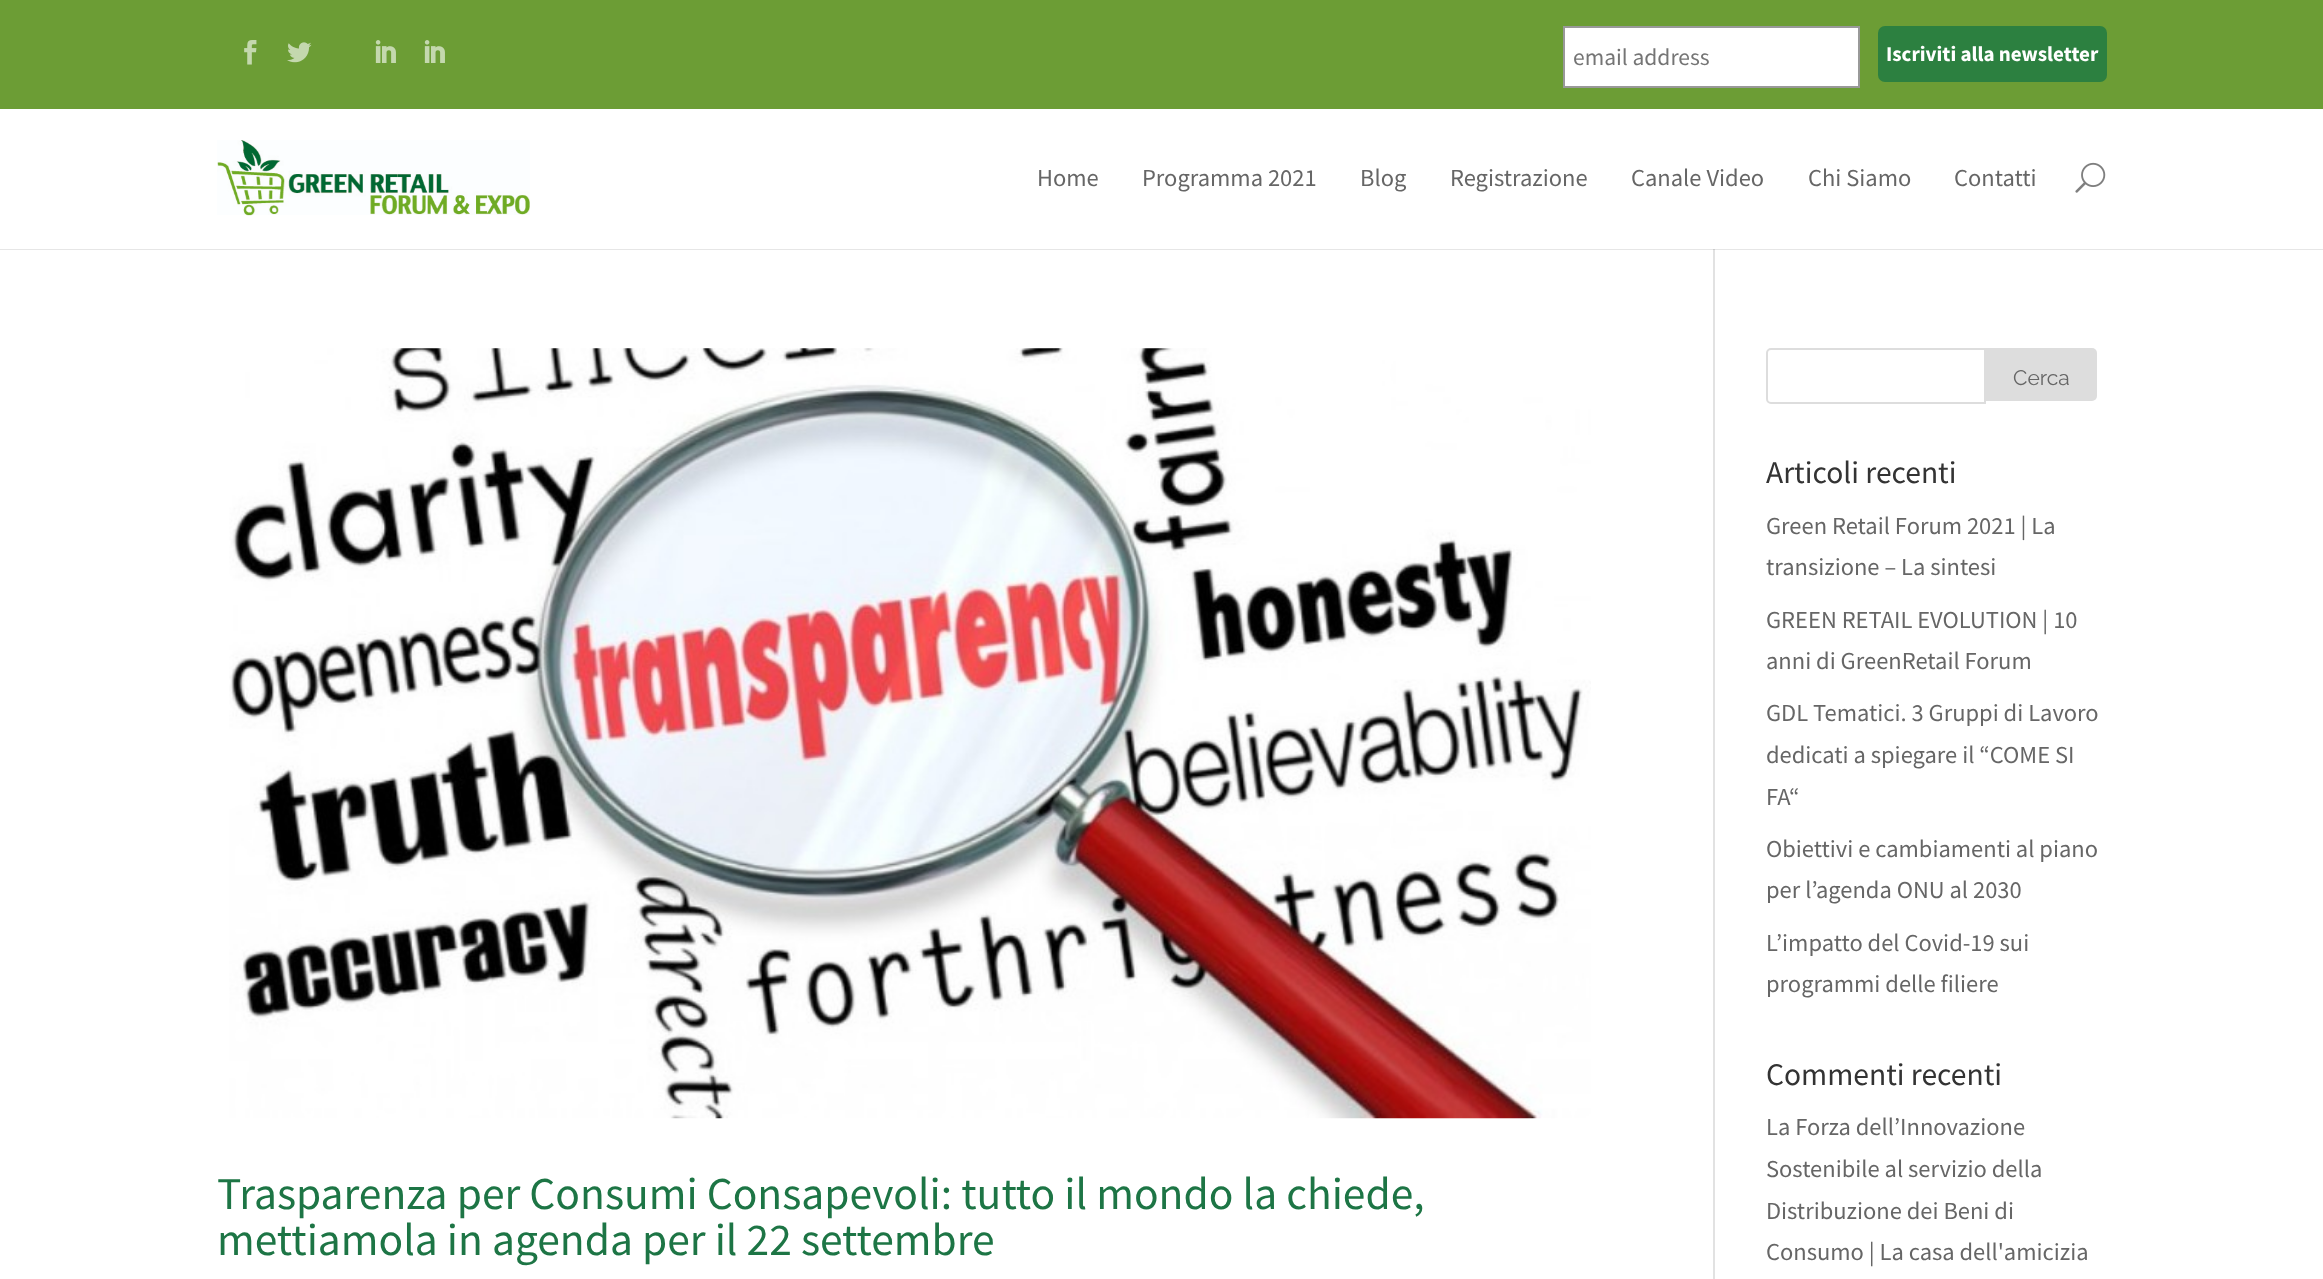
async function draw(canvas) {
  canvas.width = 2323;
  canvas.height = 1279;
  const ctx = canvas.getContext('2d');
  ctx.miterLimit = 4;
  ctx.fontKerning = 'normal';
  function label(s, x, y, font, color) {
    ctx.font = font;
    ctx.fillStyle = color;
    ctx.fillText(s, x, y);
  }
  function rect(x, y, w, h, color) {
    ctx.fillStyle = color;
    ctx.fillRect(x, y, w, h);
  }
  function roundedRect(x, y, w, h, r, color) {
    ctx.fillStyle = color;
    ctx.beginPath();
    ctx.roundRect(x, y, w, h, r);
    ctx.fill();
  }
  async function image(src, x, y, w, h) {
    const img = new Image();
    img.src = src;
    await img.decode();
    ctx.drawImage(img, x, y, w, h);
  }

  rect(0, 0, 2323, 1279, '#fff');
  rect(0, 249, 2323, 1, '#e6e6e6');
  rect(0, 0, 2323, 109, '#6c9d35');
  await image('assets/img1.png', 244, 40, 13, 25);
  await image('assets/img2.png', 287, 42, 25, 21);
  await image('assets/img3.png', 375, 40, 21, 23);
  await image('assets/img3.png', 424, 40, 21, 23);
  ctx.fillStyle = '#fff';
  ctx.beginPath();
  ctx.rect(1564, 27, 295, 60);
  ctx.fill();
  ctx.strokeStyle = '#999';
  ctx.lineWidth = 2;
  ctx.stroke();
  label('email address', 1573, 65, '23.5px Source Sans Pro', '#757575');
  roundedRect(1878, 26, 229, 56, 7, '#2c8040');
  label('Iscriviti alla newsletter', 1886, 61, 'bold 21px Source Sans Pro', '#fff');
  rect(1713, 247, 2, 1032, '#e2e2e2');
  rect(1713, 247, 2, 2, '#fff');
  await image('assets/img4.png', 217, 140, 313, 76);
  label('Home', 1037, 186, '24.5px Source Sans Pro', '#666');
  label('Programma 2021', 1142, 186, '24.5px Source Sans Pro', '#666');
  label('Blog', 1360, 186, '24.5px Source Sans Pro', '#666');
  label('Registrazione', 1450, 186, '24.5px Source Sans Pro', '#666');
  label('Canale Video', 1631, 186, '24.5px Source Sans Pro', '#666');
  label('Chi Siamo', 1808, 186, '24.5px Source Sans Pro', '#666');
  label('Contatti', 1954, 186, '24.5px Source Sans Pro', '#666');
  await image('assets/img5.png', 2075, 162, 31, 31);
  rect(1713, 249, 2, 1, '#cbcbcb');
  await image('assets/img6.png', 229, 348, 1362, 771);
  label('Trasparenza per Consumi Consapevoli: tutto il mondo la chiede,', 217, 1209, '45.5px Source Sans Pro', '#1d7545');
  label('mettiamola in agenda per il 22 settembre', 217, 1255, '45.5px Source Sans Pro', '#1d7545');
  ctx.beginPath();
  ctx.roundRect(1767, 349, 218, 54, [4, 0, 0, 4]);
  ctx.strokeStyle = '#ddd';
  ctx.stroke();
  ctx.fillStyle = '#ddd';
  ctx.beginPath();
  ctx.roundRect(1986, 348, 111, 53, [0, 5, 5, 0]);
  ctx.fill();
  label('Cerca', 2013, 385, '21px Raleway', '#666');
  label('Articoli recenti', 1766, 483, '31.5px Source Sans Pro', '#333');
  label('Green Retail Forum 2021 | La', 1766, 534, '24.5px Source Sans Pro', '#666');
  label('transizione – La sintesi', 1766, 575, '24.5px Source Sans Pro', '#666');
  label('GREEN RETAIL EVOLUTION | 10', 1766, 628, '24.5px Source Sans Pro', '#666');
  label('anni di GreenRetail Forum', 1766, 669, '24.5px Source Sans Pro', '#666');
  label('GDL Tematici. 3 Gruppi di Lavoro', 1766, 721, '24.5px Source Sans Pro', '#666');
  label('dedicati a spiegare il “COME SI', 1766, 763, '24.5px Source Sans Pro', '#666');
  label('FA“', 1766, 805, '24.5px Source Sans Pro', '#666');
  label('Obiettivi e cambiamenti al piano', 1766, 857, '24.5px Source Sans Pro', '#666');
  label('per l’agenda ONU al 2030', 1766, 898, '24.5px Source Sans Pro', '#666');
  label('L’impatto del Covid-19 sui', 1766, 951, '24.5px Source Sans Pro', '#666');
  label('programmi delle filiere', 1766, 992, '24.5px Source Sans Pro', '#666');
  label('Commenti recenti', 1766, 1085, '31.5px Source Sans Pro', '#333');
  label('La Forza dell’Innovazione', 1766, 1135, '24.5px Source Sans Pro', '#666');
  label('Sostenibile al servizio della', 1766, 1177, '24.5px Source Sans Pro', '#666');
  label('Distribuzione dei Beni di', 1766, 1219, '24.5px Source Sans Pro', '#666');
  label('Consumo | La casa dell\'amicizia', 1766, 1260, '24.5px Source Sans Pro', '#666');
}

draw(document.querySelector('canvas'));
